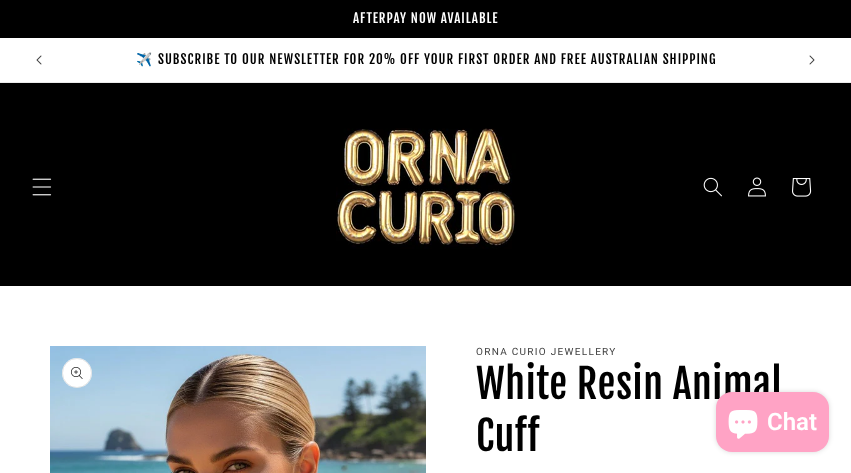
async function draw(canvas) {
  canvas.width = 851;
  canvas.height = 473;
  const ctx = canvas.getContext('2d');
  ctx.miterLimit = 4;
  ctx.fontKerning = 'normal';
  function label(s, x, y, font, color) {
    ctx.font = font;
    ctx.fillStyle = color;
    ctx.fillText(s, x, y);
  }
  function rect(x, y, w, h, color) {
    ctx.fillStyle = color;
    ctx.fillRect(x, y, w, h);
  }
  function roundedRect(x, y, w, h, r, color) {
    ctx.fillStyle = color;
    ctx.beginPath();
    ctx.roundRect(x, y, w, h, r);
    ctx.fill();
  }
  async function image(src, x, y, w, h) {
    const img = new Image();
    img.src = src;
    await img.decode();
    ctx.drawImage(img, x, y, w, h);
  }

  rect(0, 0, 851, 473, '#fff');
  rect(0, 0, 851, 38, '#000');
  ctx.letterSpacing = '1px';
  label('AFTERPAY NOW AVAILABLE', 353, 23, '13px Fjalla One', '#fff');
  rect(0, 82, 851, 1, '#ebebeb');
  await image('assets/img1.png', 36, 55, 6, 10);
  label('✈️', 136, 64, '13px Noto Color Emoji', '#000');
  label('SUBSCRIBE TO OUR NEWSLETTER FOR 20% OFF YOUR FIRST ORDER AND FREE AUSTRALIAN SHIPPING', 158, 64, '13px Fjalla One', '#000');
  await image('assets/img2.png', 809, 55, 6, 10);
  rect(0, 83, 851, 203, '#000');
  await image('assets/img3.png', 32, 178, 20, 18);
  await image('assets/img4.png', 336, 128, 180, 121);
  await image('assets/img5.png', 703, 177, 19, 20);
  await image('assets/img6.png', 748, 177, 18, 20);
  await image('assets/img7.png', 792, 178, 20, 19);
  await image('assets/img8.png', 50, 346, 376, 127);
  ctx.fillStyle = '#fff';
  ctx.beginPath();
  ctx.arc(77, 373, 15, 0, 2 * Math.PI);
  ctx.fill();
  ctx.beginPath();
  ctx.arc(77, 373, 14.5, 0, 2 * Math.PI);
  ctx.strokeStyle = '#0000001a';
  ctx.stroke();
  await image('assets/img9.png', 71, 367, 12, 12);
  ctx.letterSpacing = '1.3px';
  label('ORNA CURIO JEWELLERY', 476, 355, '10px Roboto', '#404040');
  ctx.letterSpacing = '0.6px';
  label('White Resin Animal', 476, 399, '40px Fjalla One', '#000');
  label('Cuff', 476, 451, '40px Fjalla One', '#000');
  ctx.fillStyle = '#00000026';
  ctx.filter = 'blur(2.5px)';
  ctx.beginPath();
  ctx.roundRect(716, 392, 113, 60, 16);
  ctx.fill();
  ctx.filter = 'none';
  roundedRect(716, 392, 113, 60, 16, '#ffa3c5');
  await image('assets/img10.png', 728, 410, 30, 29);
  ctx.letterSpacing = '0px';
  label('Chat', 767, 430, '600 24px Roboto', '#fff');
}

draw(document.querySelector('canvas'));
